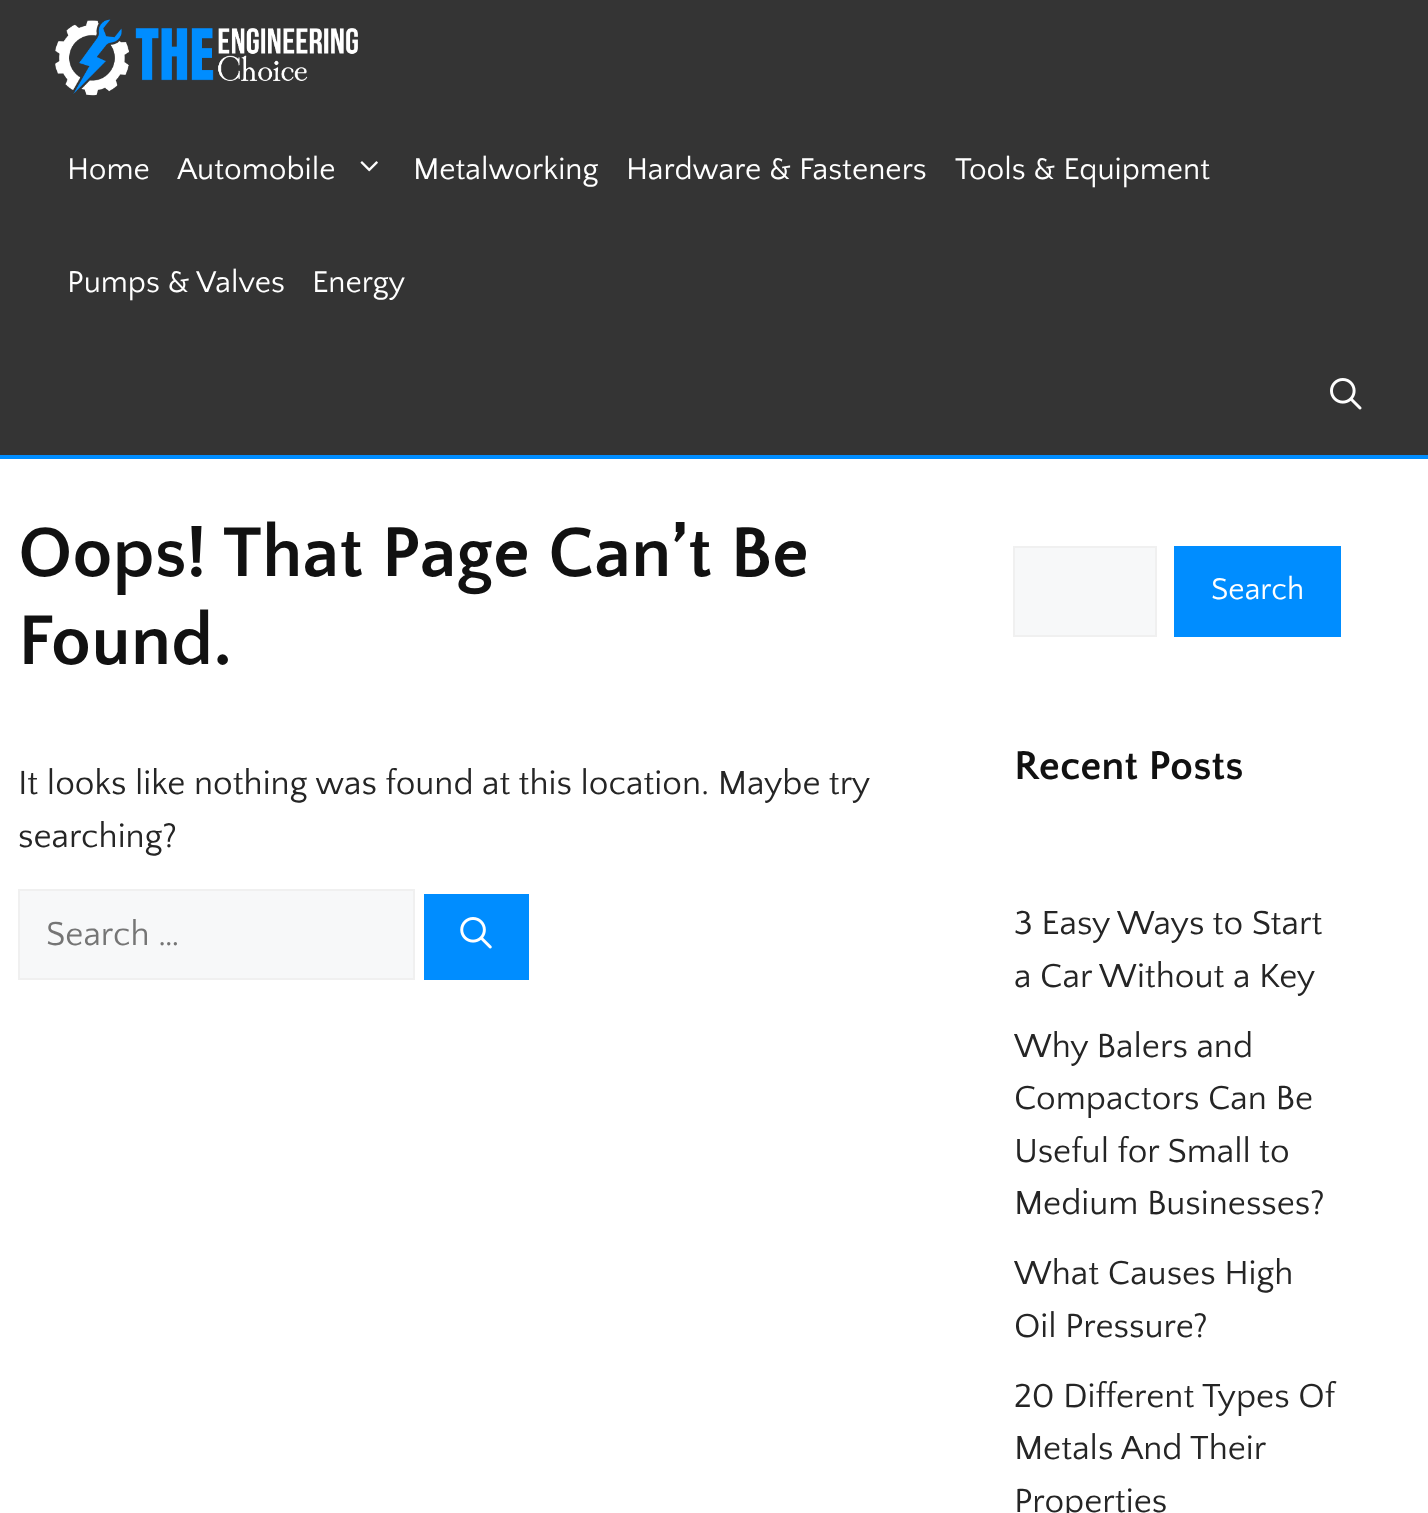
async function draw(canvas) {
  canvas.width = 1428;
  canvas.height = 1513;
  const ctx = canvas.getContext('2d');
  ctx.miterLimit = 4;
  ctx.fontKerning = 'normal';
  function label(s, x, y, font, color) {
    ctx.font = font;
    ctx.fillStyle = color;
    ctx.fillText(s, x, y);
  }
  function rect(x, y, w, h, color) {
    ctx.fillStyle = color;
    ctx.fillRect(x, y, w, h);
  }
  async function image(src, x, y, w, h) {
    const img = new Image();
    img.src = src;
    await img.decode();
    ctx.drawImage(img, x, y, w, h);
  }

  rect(0, 0, 1428, 1513, '#fff');
  rect(0, 0, 1428, 455, '#343434');
  rect(0, 455, 1428, 4, '#008dff');
  await image('assets/img1.png', 55, 19, 303, 77);
  label('Home', 67, 179, '31.5px Quattrocento Sans', '#fff');
  label('Automobile', 177, 179, '31.5px Quattrocento Sans', '#fff');
  await image('assets/img2.png', 360, 161, 18, 11);
  label('Metalworking', 413, 179, '31.5px Quattrocento Sans', '#fff');
  label('Hardware & Fasteners', 626, 179, '31.5px Quattrocento Sans', '#fff');
  label('Tools & Equipment', 955, 179, '31.5px Quattrocento Sans', '#fff');
  label('Pumps & Valves', 67, 292, '31.5px Quattrocento Sans', '#fff');
  label('Energy', 312, 292, '31.5px Quattrocento Sans', '#fff');
  await image('assets/img3.png', 1330, 378, 32, 32);
  label('Oops! That Page Can’t Be', 18, 576, 'bold 73.5px Quattrocento Sans', '#111');
  label('Found.', 18, 664, 'bold 73.5px Quattrocento Sans', '#111');
  label('It looks like nothing was found at this location. Maybe try', 18, 794, '35px Quattrocento Sans', '#252525');
  label('searching?', 18, 847, '35px Quattrocento Sans', '#252525');
  ctx.fillStyle = '#f7f8f9';
  ctx.beginPath();
  ctx.rect(19, 890, 395, 89);
  ctx.fill();
  ctx.strokeStyle = '#f0f0f0';
  ctx.lineWidth = 2;
  ctx.stroke();
  label('Search …', 46, 945, '35px Quattrocento Sans', '#757575');
  rect(424, 894, 105, 86, '#008dff');
  await image('assets/img4.png', 460, 917, 32, 32);
  ctx.fillStyle = '#f7f8f9';
  ctx.beginPath();
  ctx.rect(1014, 547, 142, 89);
  ctx.fill();
  ctx.stroke();
  rect(1174, 546, 167, 91, '#008dff');
  label('Search', 1211, 599, '31.5px Quattrocento Sans', '#fff');
  label('Recent Posts', 1014, 779, 'bold 42px Quattrocento Sans', '#111');
  label('3 Easy Ways to Start', 1014, 934, '35px Quattrocento Sans', '#252525');
  label('a Car Without a Key', 1014, 987, '35px Quattrocento Sans', '#252525');
  label('Why Balers and', 1014, 1057, '35px Quattrocento Sans', '#252525');
  label('Compactors Can Be', 1014, 1109, '35px Quattrocento Sans', '#252525');
  label('Useful for Small to', 1014, 1162, '35px Quattrocento Sans', '#252525');
  label('Medium Businesses?', 1014, 1214, '35px Quattrocento Sans', '#252525');
  label('What Causes High', 1014, 1284, '35px Quattrocento Sans', '#252525');
  label('Oil Pressure?', 1014, 1337, '35px Quattrocento Sans', '#252525');
  label('20 Different Types Of', 1014, 1407, '35px Quattrocento Sans', '#252525');
  label('Metals And Their', 1014, 1459, '35px Quattrocento Sans', '#252525');
  label('Properties', 1014, 1512, '35px Quattrocento Sans', '#252525');
}

draw(document.querySelector('canvas'));
